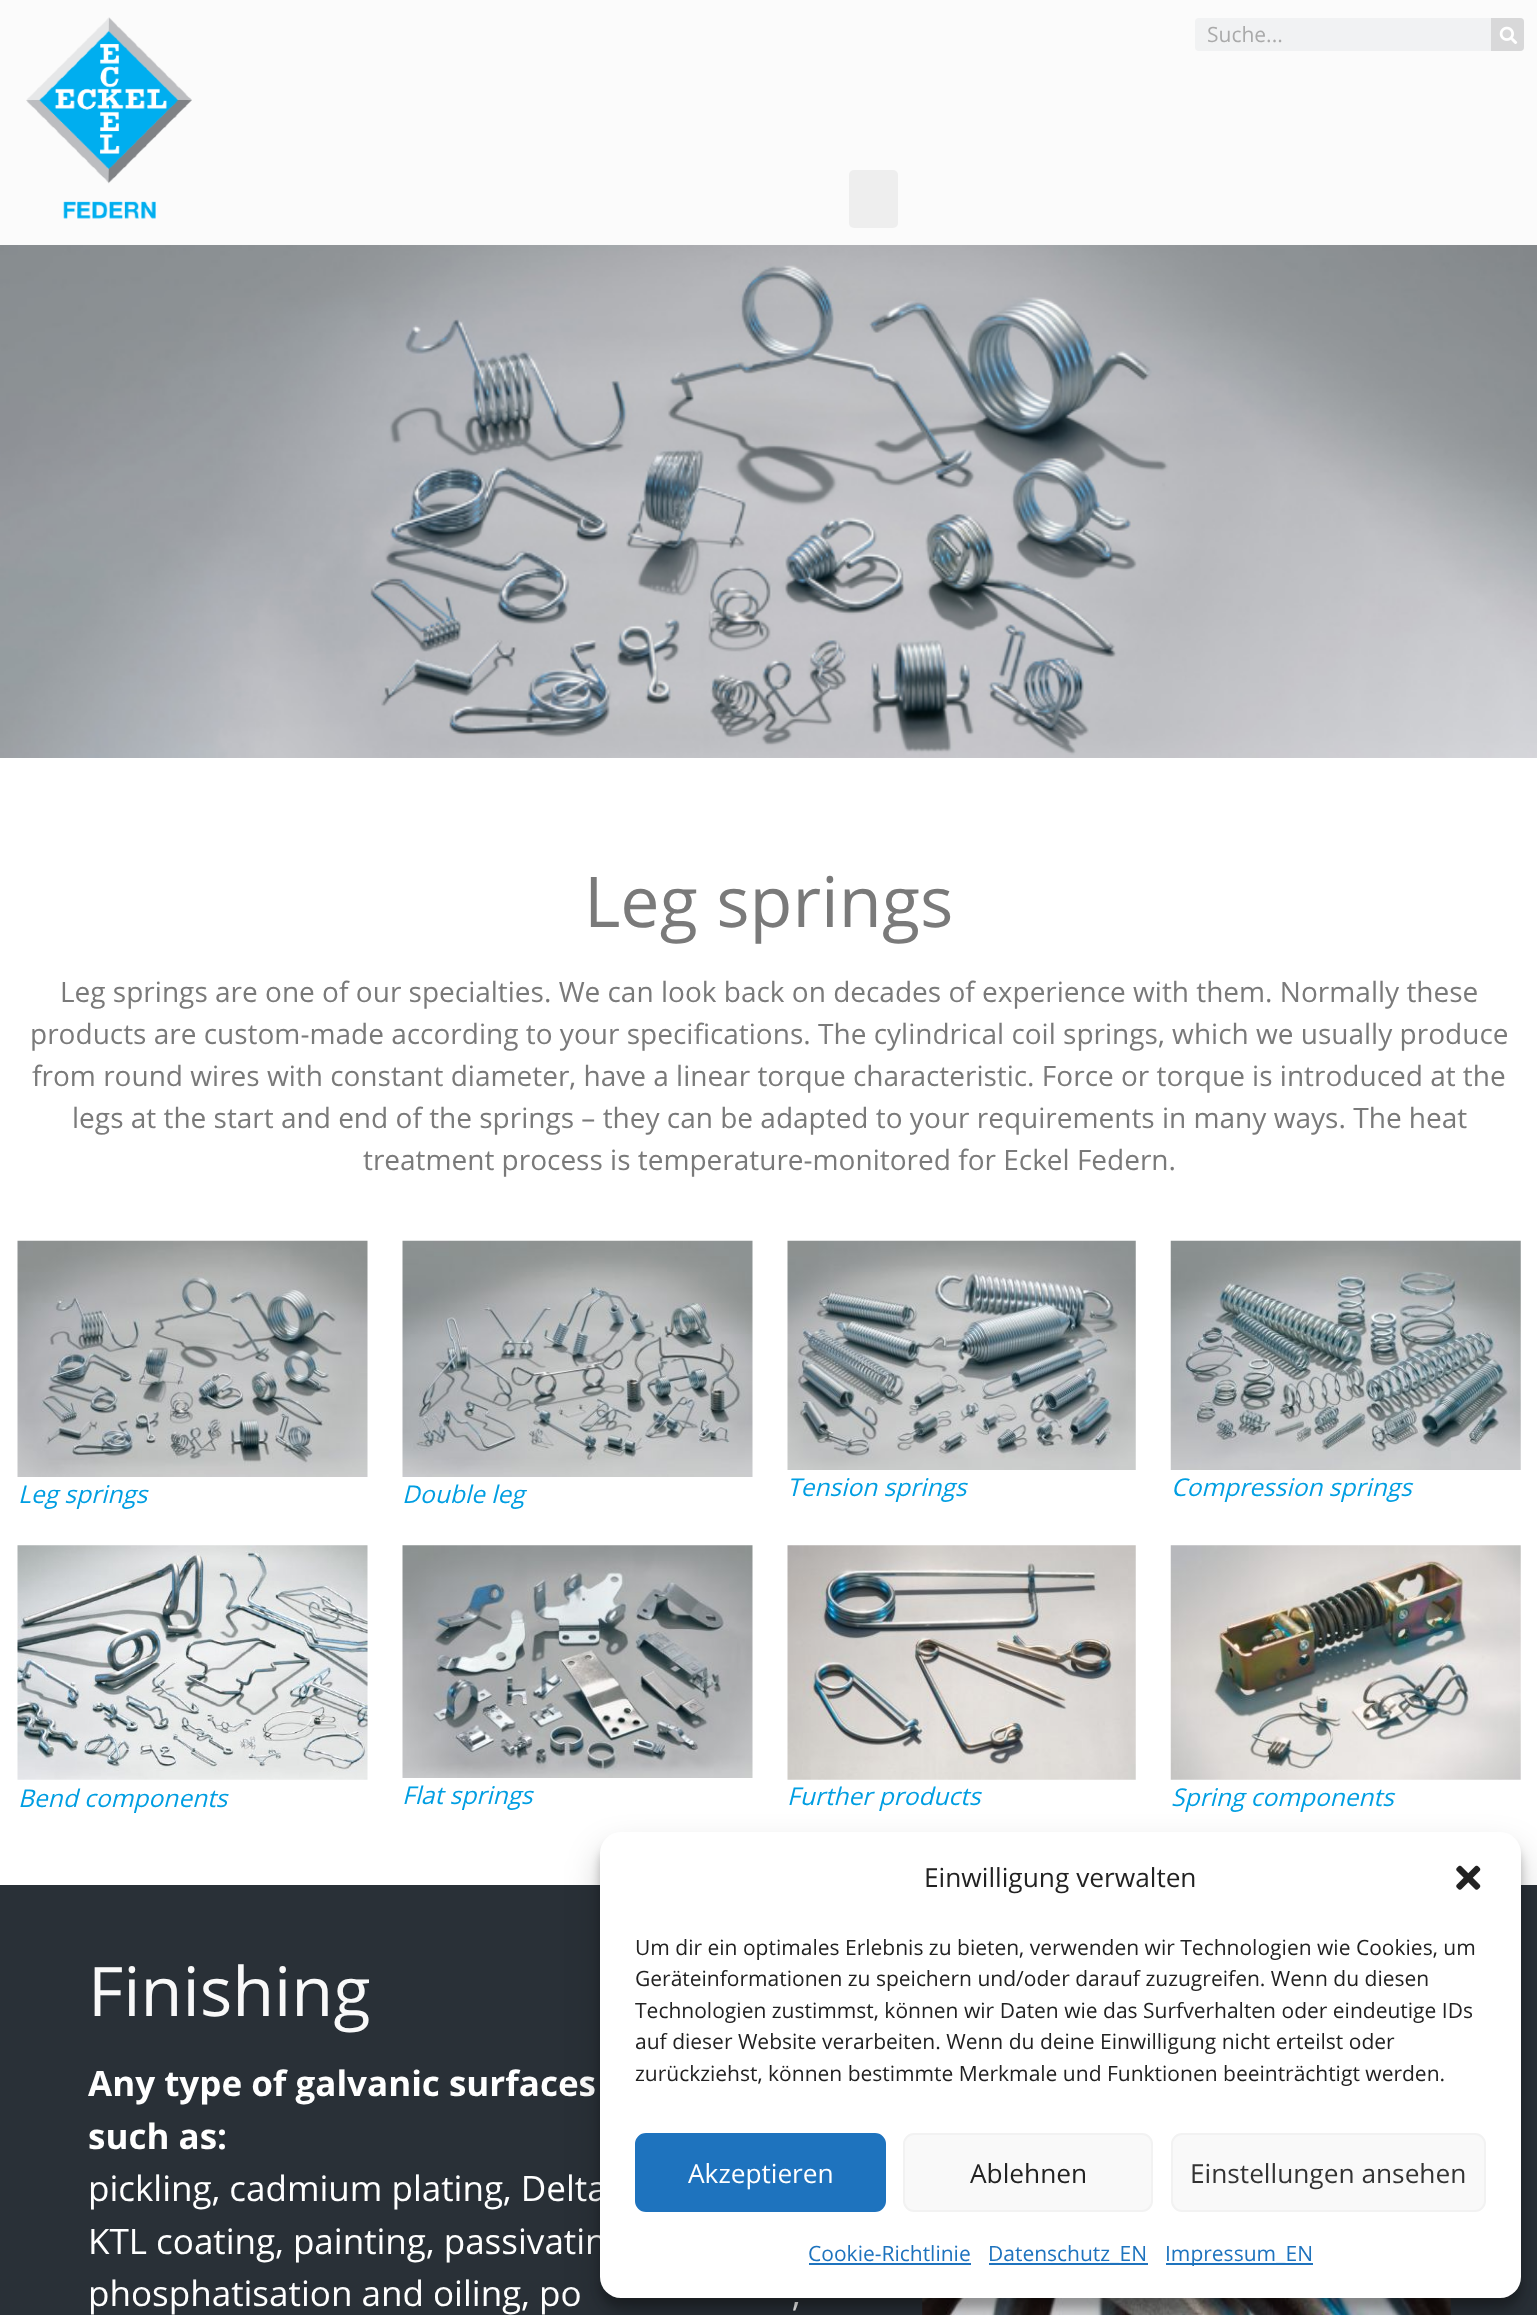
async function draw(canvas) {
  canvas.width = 1537;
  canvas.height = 2315;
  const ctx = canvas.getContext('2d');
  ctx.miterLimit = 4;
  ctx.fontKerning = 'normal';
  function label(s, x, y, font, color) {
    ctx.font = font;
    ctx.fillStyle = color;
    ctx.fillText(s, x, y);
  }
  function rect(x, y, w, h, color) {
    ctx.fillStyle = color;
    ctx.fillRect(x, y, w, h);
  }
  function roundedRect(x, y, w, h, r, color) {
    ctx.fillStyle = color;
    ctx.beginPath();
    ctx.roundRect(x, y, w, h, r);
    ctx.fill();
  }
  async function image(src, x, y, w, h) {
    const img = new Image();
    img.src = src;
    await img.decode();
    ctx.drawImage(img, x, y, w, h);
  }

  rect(0, 0, 1537, 2315, '#fff');
  rect(0, 0, 1537, 245, '#fbfbfb');
  await image('assets/img1.png', 26, 17, 166, 202);
  roundedRect(1195, 18, 329, 33, 4, '#f1f2f3');
  label('Suche...', 1207, 42, '21px Open Sans', '#aaa');
  ctx.fillStyle = '#d8d8d9';
  ctx.beginPath();
  ctx.roundRect(1491, 18, 33, 33, [0, 4, 4, 0]);
  ctx.fill();
  await image('assets/img2.png', 1499, 26, 19, 18);
  roundedRect(849, 170, 49, 58, 5, '#eee');
  await image('assets/img3.png', 0, 245, 1537, 513);
  label('Leg springs', 584, 927, '70px Open Sans', '#7a7a7a');
  label('Leg springs are one of our specialties. We can look back on decades of experience with them. Normally these', 60, 1002, '28px Open Sans', '#7a7a7a');
  label('products are custom-made according to your specifications. The cylindrical coil springs, which we usually produce', 30, 1044, '28px Open Sans', '#7a7a7a');
  label('from round wires with constant diameter, have a linear torque characteristic. Force or torque is introduced at the', 32, 1086, '28px Open Sans', '#7a7a7a');
  label('legs at the start and end of the springs – they can be adapted to your requirements in many ways. The heat', 72, 1128, '28px Open Sans', '#7a7a7a');
  label('treatment process is temperature-monitored for Eckel Federn.', 363, 1170, '28px Open Sans', '#7a7a7a');
  await image('assets/img4.png', 17, 1240, 351, 237);
  label('Leg springs', 18, 1503, 'italic 24.5px Open Sans', '#009ee2');
  await image('assets/img5.png', 402, 1240, 351, 237);
  label('Double leg', 402, 1503, 'italic 24.5px Open Sans', '#009ee2');
  await image('assets/img6.png', 787, 1240, 349, 230);
  label('Tension springs', 787, 1496, 'italic 24.5px Open Sans', '#009ee2');
  await image('assets/img7.png', 1170, 1240, 351, 230);
  label('Compression springs', 1171, 1496, 'italic 24.5px Open Sans', '#009ee2');
  await image('assets/img8.png', 17, 1545, 351, 235);
  label('Bend components', 18, 1807, 'italic 24.5px Open Sans', '#009ee2');
  await image('assets/img9.png', 402, 1545, 351, 233);
  label('Flat springs', 402, 1804, 'italic 24.5px Open Sans', '#009ee2');
  await image('assets/img10.png', 787, 1545, 349, 235);
  label('Further products', 787, 1805, 'italic 24.5px Open Sans', '#009ee2');
  await image('assets/img11.png', 1170, 1545, 351, 235);
  label('Spring components', 1171, 1806, 'italic 24.5px Open Sans', '#009ee2');
  rect(0, 1885, 1537, 430, '#293037');
  label('Finishing', 88, 2016, '68.25px Open Sans', '#f9f9f9');
  label('Any type of galvanic surfaces', 88, 2096, 'bold 35px Open Sans', '#fff');
  label('such as:', 88, 2149, 'bold 35px Open Sans', '#fff');
  label('pickling, cadmium plating, Delta', 88, 2201, '35px Open Sans', '#fff');
  label('KTL coating, painting, passivatin', 88, 2254, '35px Open Sans', '#fff');
  label('phosphatisation and oiling, po', 88, 2306, '35px Open Sans', '#fff');
  label(',', 792, 2306, '35px Open Sans', '#fff');
  await image('assets/img12.png', 922, 2298, 529, 17);
  ctx.fillStyle = '#0000003b';
  ctx.filter = 'blur(5px)';
  ctx.beginPath();
  ctx.roundRect(600, 1843, 921, 465, 21);
  ctx.fill();
  ctx.filter = 'none';
  ctx.fillStyle = '#00000030';
  ctx.filter = 'blur(17.5px)';
  ctx.beginPath();
  ctx.roundRect(600, 1850, 921, 465, 21);
  ctx.fill();
  ctx.filter = 'none';
  roundedRect(600, 1832, 921, 466, 21, '#fff');
  label('Einwilligung verwalten', 924, 1887, '26.25px Open Sans', '#222');
  await image('assets/img13.png', 1456, 1865, 25, 25);
  label('Um dir ein optimales Erlebnis zu bieten, verwenden wir Technologien wie Cookies, um', 635, 1955, '21px Open Sans', '#222');
  label('Geräteinformationen zu speichern und/oder darauf zuzugreifen. Wenn du diesen', 635, 1986, '21px Open Sans', '#222');
  label('Technologien zustimmst, können wir Daten wie das Surfverhalten oder eindeutige IDs', 635, 2018, '21px Open Sans', '#222');
  label('auf dieser Website verarbeiten. Wenn du deine Einwilligung nicht erteilst oder', 635, 2049, '21px Open Sans', '#222');
  label('zurückziehst, können bestimmte Merkmale und Funktionen beeinträchtigt werden.', 635, 2081, '21px Open Sans', '#222');
  ctx.fillStyle = '#1e73be';
  ctx.beginPath();
  ctx.roundRect(636, 2134, 249, 77, 10);
  ctx.fill();
  ctx.strokeStyle = '#1e73be';
  ctx.lineWidth = 2;
  ctx.stroke();
  label('Akzeptieren', 688, 2183, '26.25px Open Sans', '#fff');
  ctx.fillStyle = '#f9f9f9';
  ctx.beginPath();
  ctx.roundRect(904, 2134, 248, 77, 10);
  ctx.fill();
  ctx.strokeStyle = '#f2f2f2';
  ctx.stroke();
  label('Ablehnen', 970, 2183, '26.25px Open Sans', '#222');
  ctx.fillStyle = '#f9f9f9';
  ctx.beginPath();
  ctx.roundRect(1172, 2134, 313, 77, 10);
  ctx.fill();
  ctx.stroke();
  label('Einstellungen ansehen', 1190, 2183, '26.25px Open Sans', '#333');
  label('Cookie-Richtlinie', 808, 2261, '21px Open Sans', '#1e73be');
  rect(809, 2263, 162, 2, '#1e73be');
  rect(989, 2263, 159, 2, '#1e73be');
  label('Datenschutz_EN', 988, 2261, '21px Open Sans', '#1e73be');
  rect(1166, 2263, 147, 2, '#1e73be');
  label('Impressum_EN', 1165, 2261, '21px Open Sans', '#1e73be');
}

draw(document.querySelector('canvas'));
